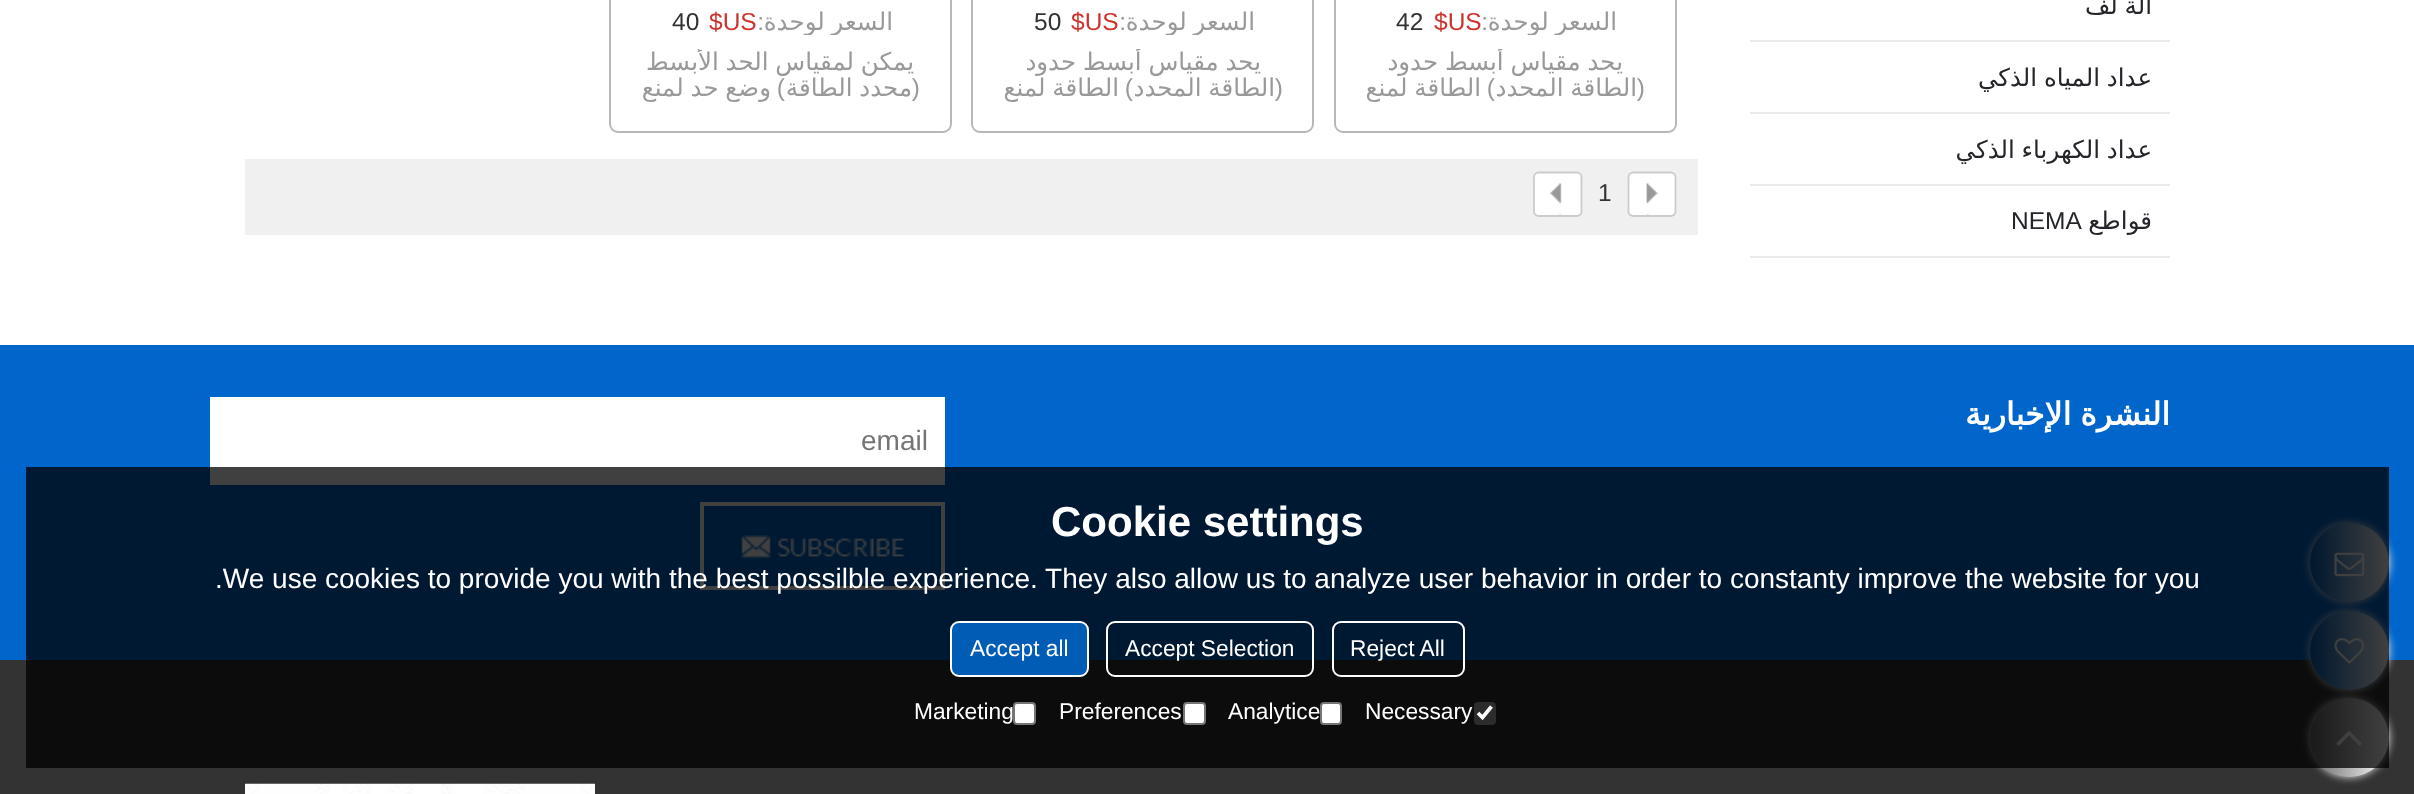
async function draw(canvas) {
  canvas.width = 2414;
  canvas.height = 794;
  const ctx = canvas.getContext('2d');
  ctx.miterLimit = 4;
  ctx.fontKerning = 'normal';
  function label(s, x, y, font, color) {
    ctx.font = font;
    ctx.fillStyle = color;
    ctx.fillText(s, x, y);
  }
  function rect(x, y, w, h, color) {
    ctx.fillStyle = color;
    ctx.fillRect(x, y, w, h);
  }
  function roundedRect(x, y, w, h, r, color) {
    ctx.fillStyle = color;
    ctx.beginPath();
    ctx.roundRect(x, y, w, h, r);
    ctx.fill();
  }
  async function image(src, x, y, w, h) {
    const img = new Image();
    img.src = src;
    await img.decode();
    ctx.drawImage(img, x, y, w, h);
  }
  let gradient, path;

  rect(0, 0, 2414, 794, '#fff');
  ctx.beginPath();
  ctx.roundRect(610, -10, 341, 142, 8);
  ctx.strokeStyle = '#b8b8b8';
  ctx.lineWidth = 2;
  ctx.stroke();
  label('40', 672, 30, '24.5px Liberation Sans', '#333');
  label('$US', 709, 30, '24.5px Liberation Sans', '#ce322e');
  ctx.direction = 'rtl';
  label(':', 764, 30, '24.5px Liberation Sans', '#999');
  ctx.save();
  ctx.beginPath();
  ctx.rect(623, 9, 315, 26);
  ctx.clip();
  ctx.wordSpacing = '-1px';
  label('السعر لوحدة', 893, 30, '24.5px DejaVu Sans', '#999');
  ctx.restore();
  ctx.save();
  ctx.beginPath();
  ctx.rect(623, 49, 315, 56);
  ctx.clip();
  ctx.wordSpacing = '-1px';
  label('يمكن لمقياس الحد الأبسط', 914, 70, '24.5px DejaVu Sans', '#999');
  ctx.restore();
  ctx.wordSpacing = '-1px';
  label('وضع حد لمنع', 771, 96, '24.5px DejaVu Sans', '#999');
  ctx.wordSpacing = '0px';
  label(')', 785, 96, '24.5px Liberation Sans', '#999');
  ctx.wordSpacing = '-1px';
  label('محدد الطاقة', 912, 96, '24.5px DejaVu Sans', '#999');
  ctx.wordSpacing = '0px';
  label('(', 920, 96, '24.5px Liberation Sans', '#999');
  ctx.beginPath();
  ctx.roundRect(972, -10, 341, 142, 8);
  ctx.stroke();
  ctx.direction = 'ltr';
  label('50', 1034, 30, '24.5px Liberation Sans', '#333');
  label('$US', 1071, 30, '24.5px Liberation Sans', '#ce322e');
  ctx.direction = 'rtl';
  label(':', 1126, 30, '24.5px Liberation Sans', '#999');
  ctx.save();
  ctx.beginPath();
  ctx.rect(985, 9, 315, 26);
  ctx.clip();
  ctx.wordSpacing = '-1px';
  label('السعر لوحدة', 1255, 30, '24.5px DejaVu Sans', '#999');
  ctx.restore();
  ctx.save();
  ctx.beginPath();
  ctx.rect(985, 49, 315, 56);
  ctx.clip();
  ctx.wordSpacing = '-1px';
  label('يحد مقياس أبسط حدود', 1261, 70, '24.5px DejaVu Sans', '#999');
  ctx.restore();
  ctx.wordSpacing = '-1px';
  label('الطاقة لمنع', 1119, 96, '24.5px DejaVu Sans', '#999');
  ctx.wordSpacing = '0px';
  label(')', 1133, 96, '24.5px Liberation Sans', '#999');
  ctx.wordSpacing = '-1px';
  label('الطاقة المحدد', 1275, 96, '24.5px DejaVu Sans', '#999');
  ctx.wordSpacing = '0px';
  label('(', 1283, 96, '24.5px Liberation Sans', '#999');
  ctx.beginPath();
  ctx.roundRect(1335, -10, 341, 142, 8);
  ctx.stroke();
  ctx.direction = 'ltr';
  label('42', 1396, 30, '24.5px Liberation Sans', '#333');
  label('$US', 1434, 30, '24.5px Liberation Sans', '#ce322e');
  ctx.direction = 'rtl';
  label(':', 1488, 30, '24.5px Liberation Sans', '#999');
  ctx.save();
  ctx.beginPath();
  ctx.rect(1348, 9, 315, 26);
  ctx.clip();
  ctx.wordSpacing = '-1px';
  label('السعر لوحدة', 1617, 30, '24.5px DejaVu Sans', '#999');
  ctx.restore();
  ctx.save();
  ctx.beginPath();
  ctx.rect(1348, 49, 315, 56);
  ctx.clip();
  ctx.wordSpacing = '-1px';
  label('يحد مقياس أبسط حدود', 1623, 70, '24.5px DejaVu Sans', '#999');
  ctx.restore();
  ctx.wordSpacing = '-1px';
  label('الطاقة لمنع', 1481, 96, '24.5px DejaVu Sans', '#999');
  ctx.wordSpacing = '0px';
  label(')', 1495, 96, '24.5px Liberation Sans', '#999');
  ctx.wordSpacing = '-1px';
  label('الطاقة المحدد', 1637, 96, '24.5px DejaVu Sans', '#999');
  ctx.wordSpacing = '0px';
  label('(', 1645, 96, '24.5px Liberation Sans', '#999');
  rect(245, 159, 1453, 76, '#f0f0f0');
  ctx.fillStyle = '#fff';
  path = new Path2D('M1577 172H1539C1536 172 1533 174 1533 177V212C1533 215 1536 217 1539 217H1577C1580 217 1582 215 1582 212V177C1582 174 1580 172 1577 172Z');
  ctx.fill(path);
  await image('assets/img1.png', 1550, 183, 12, 34);
  path = new Path2D('M1577 172.5H1538.5C1536 172.5 1534 174.5 1534 177V212C1534 214 1536 216 1538.5 216H1577C1579.5 216 1581.5 214 1581.5 212V177C1581.5 174.5 1579.5 172.5 1577 172.5Z');
  ctx.strokeStyle = '#ccc';
  ctx.lineWidth = 1.8;
  ctx.stroke(path);
  ctx.direction = 'ltr';
  label('1', 1598, 201, '24.5px Liberation Sans', '#333');
  ctx.fillStyle = '#fff';
  path = new Path2D('M1671 172H1633C1630 172 1628 174 1628 177V212C1628 215 1630 217 1633 217H1671C1674 217 1676 215 1676 212V177C1676 174 1674 172 1671 172Z');
  ctx.fill(path);
  await image('assets/img2.png', 1646, 183, 12, 34);
  path = new Path2D('M1671 172.5H1633C1630.5 172.5 1628.5 174.5 1628.5 177V212C1628.5 214 1630.5 216 1633 216H1671C1673.5 216 1675.5 214 1675.5 212V177C1675.5 174.5 1673.5 172.5 1671 172.5Z');
  ctx.stroke(path);
  rect(1750, 40, 420, 2, '#eaeaea');
  ctx.wordSpacing = '-1px';
  ctx.direction = 'rtl';
  label('آلة لف', 2152, 14, '24.5px DejaVu Sans', '#24252a');
  rect(1750, 112, 420, 2, '#eaeaea');
  label('عداد المياه الذكي', 2152, 86, '24.5px DejaVu Sans', '#24252a');
  rect(1750, 184, 420, 2, '#eaeaea');
  label('عداد الكهرباء الذكي', 2152, 158, '24.5px DejaVu Sans', '#24252a');
  rect(1750, 256, 420, 2, '#eaeaea');
  ctx.wordSpacing = '0px';
  ctx.direction = 'ltr';
  label('NEMA', 2011, 229, '24.5px Liberation Sans', '#24252a');
  ctx.direction = 'rtl';
  label('قواطع', 2152, 229, '24.5px DejaVu Sans', '#24252a');
  rect(0, 345, 2414, 315, '#06c');
  ctx.wordSpacing = '-1px';
  label('النشرة الإخبارية', 2170, 425, 'bold 31.5px DejaVu Sans', '#fff');
  rect(210, 397, 735, 88, '#fff');
  ctx.wordSpacing = '0px';
  ctx.direction = 'ltr';
  label('email', 861, 450, '28px Liberation Sans', '#757575');
  await image('assets/img3.png', 741, 535, 165, 24);
  ctx.strokeStyle = '#fff';
  ctx.lineWidth = 4;
  ctx.strokeRect(702, 504, 241, 84);
  rect(0, 660, 2414, 134, '#333');
  await image('assets/img4.png', 245, 783, 350, 11);
  ctx.fillStyle = '#eee';
  ctx.filter = 'blur(4.5px)';
  ctx.beginPath();
  ctx.roundRect(2310, 523, 79, 79, 39.5);
  ctx.fill();
  ctx.filter = 'none';
  gradient = ctx.createLinearGradient(2310, 563, 2389, 563);
  gradient.addColorStop(0, '#015cb5');
  gradient.addColorStop(1, '#fff');
  ctx.fillStyle = gradient;
  ctx.beginPath();
  ctx.arc(2349.5, 562.5, 39.5, 0, 2 * Math.PI);
  ctx.fill();
  await image('assets/img5.png', 2334, 552, 31, 25);
  ctx.fillStyle = '#eee';
  ctx.filter = 'blur(4.5px)';
  ctx.beginPath();
  ctx.roundRect(2310, 611, 79, 79, 39.5);
  ctx.fill();
  ctx.filter = 'none';
  gradient = ctx.createLinearGradient(2310, 650, 2389, 650);
  gradient.addColorStop(0, '#015cb5');
  gradient.addColorStop(1, '#fff');
  ctx.fillStyle = gradient;
  ctx.beginPath();
  ctx.arc(2349.5, 650.5, 39.5, 0, 2 * Math.PI);
  ctx.fill();
  await image('assets/img6.png', 2334, 638, 31, 26);
  ctx.fillStyle = '#eee';
  ctx.filter = 'blur(4.5px)';
  ctx.beginPath();
  ctx.roundRect(2310, 698, 79, 79, 39.5);
  ctx.fill();
  ctx.filter = 'none';
  gradient = ctx.createLinearGradient(2310, 738, 2389, 738);
  gradient.addColorStop(0, '#666');
  gradient.addColorStop(1, '#fff');
  ctx.fillStyle = gradient;
  ctx.beginPath();
  ctx.arc(2349.5, 737.5, 39.5, 0, 2 * Math.PI);
  ctx.fill();
  await image('assets/img7.png', 2336, 731, 26, 15);
  rect(26, 467, 2363, 301, '#000000bf');
  label('Cookie settings', 1051, 536, 'bold 42px Liberation Sans', '#fff');
  label('.We use cookies to provide you with the best possilble experience. They also allow us to analyze user behavior in order to constanty improve the website for you', 215, 588, '28px Liberation Sans', '#fff');
  ctx.fillStyle = '#015cb5';
  ctx.beginPath();
  ctx.roundRect(951, 622, 137, 54, 8);
  ctx.fill();
  ctx.lineWidth = 2;
  ctx.stroke();
  label('Accept all', 970, 656, '22.75px Liberation Sans', '#fff');
  ctx.beginPath();
  ctx.roundRect(1107, 622, 206, 54, 8);
  ctx.stroke();
  label('Accept Selection', 1125, 656, '22.75px Liberation Sans', '#fff');
  ctx.beginPath();
  ctx.roundRect(1333, 622, 131, 54, 8);
  ctx.stroke();
  label('Reject All', 1350, 656, '22.75px Liberation Sans', '#fff');
  label('Marketing', 914, 719, '22.75px Liberation Sans', '#fff');
  ctx.beginPath();
  ctx.roundRect(1014, 703, 21, 21, 3);
  ctx.fill();
  ctx.strokeStyle = '#767676';
  ctx.stroke();
  label('Preferences', 1059, 719, '22.75px Liberation Sans', '#fff');
  ctx.beginPath();
  ctx.roundRect(1184, 703, 21, 21, 3);
  ctx.fill();
  ctx.stroke();
  label('Analytice', 1228, 719, '22.75px Liberation Sans', '#fff');
  ctx.beginPath();
  ctx.roundRect(1321, 703, 20, 21, 3);
  ctx.fill();
  ctx.stroke();
  label('Necessary', 1365, 719, '22.75px Liberation Sans', '#fff');
  roundedRect(1474, 702, 22, 23, 4, '#2c2c2c');
  path = new Path2D('M1478 713L1482.5 717.5L1491.5 706.5');
  ctx.strokeStyle = '#fff';
  ctx.lineWidth = 3.6;
  ctx.stroke(path);
}

draw(document.querySelector('canvas'));
